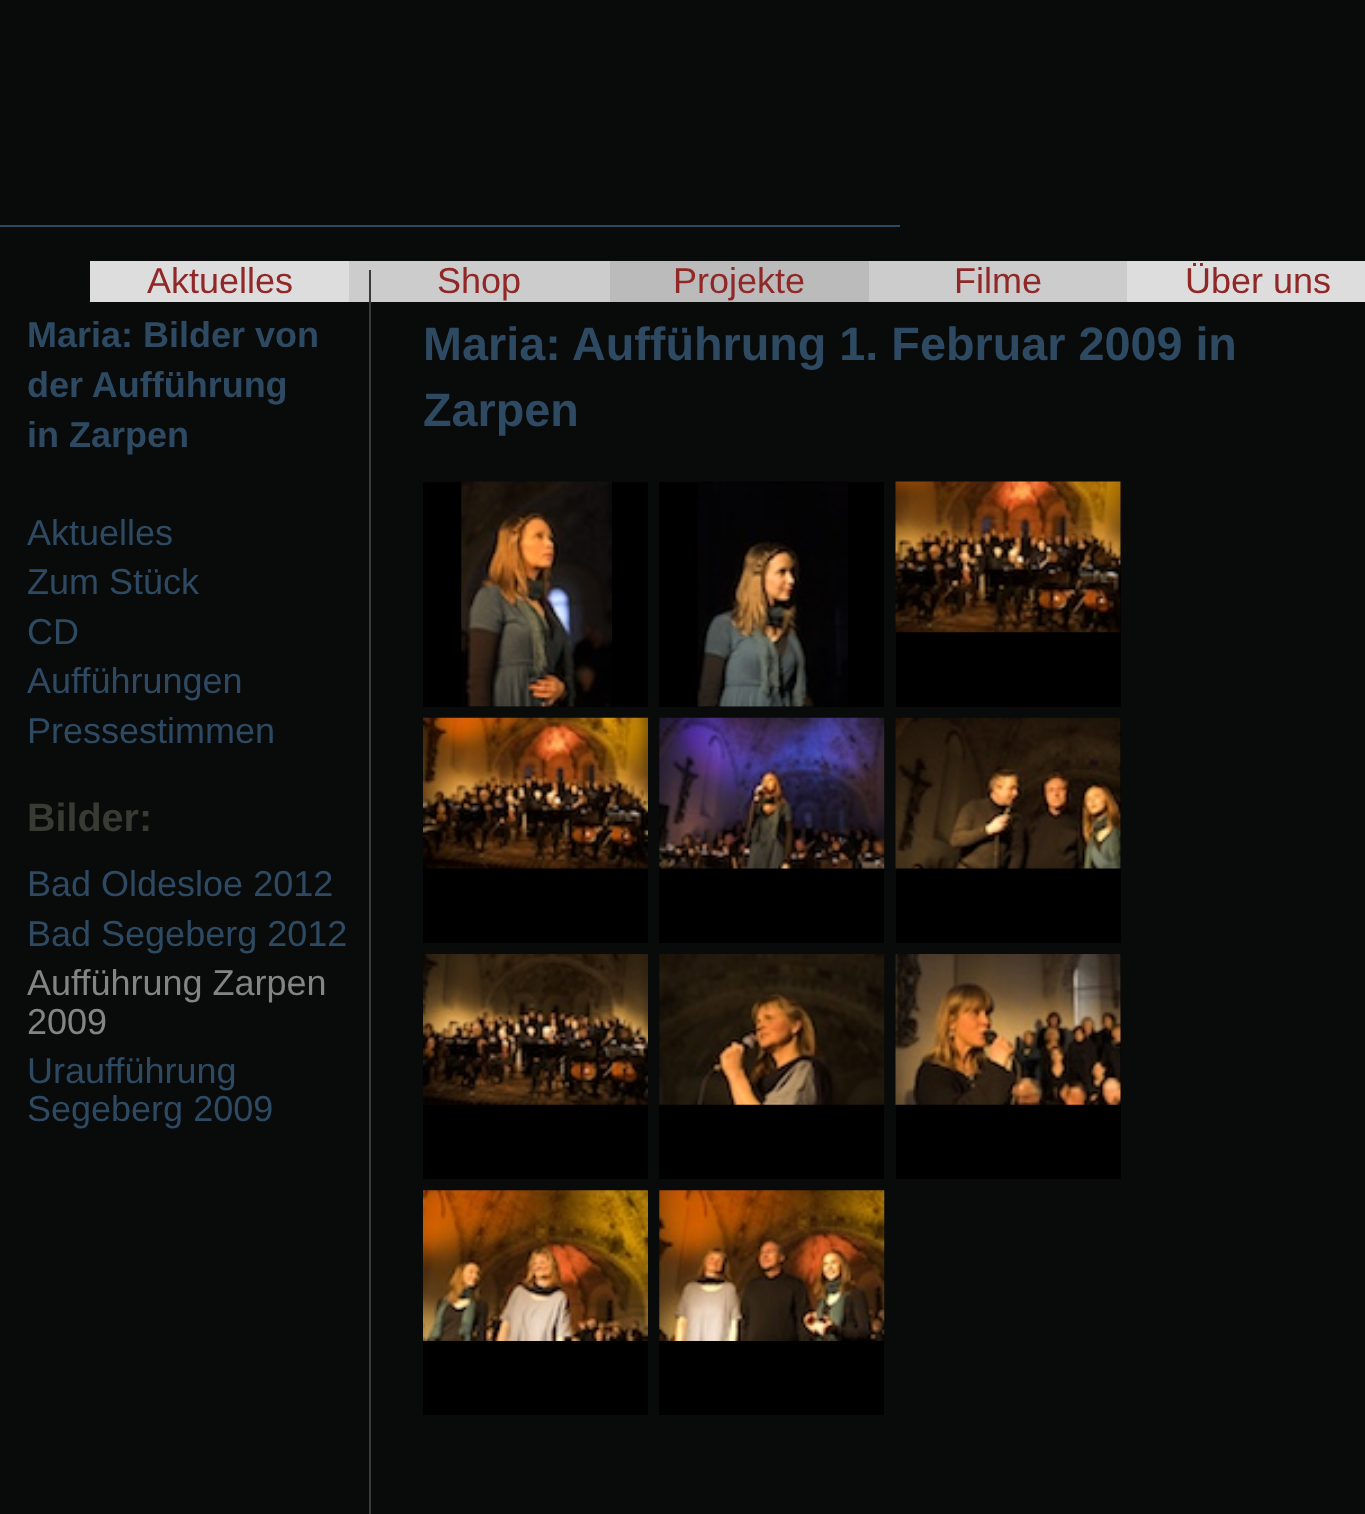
async function draw(canvas) {
  canvas.width = 1365;
  canvas.height = 1514;
  const ctx = canvas.getContext('2d');
  ctx.miterLimit = 4;
  ctx.fontKerning = 'normal';
  function label(s, x, y, font, color) {
    ctx.font = font;
    ctx.fillStyle = color;
    ctx.fillText(s, x, y);
  }
  function rect(x, y, w, h, color) {
    ctx.fillStyle = color;
    ctx.fillRect(x, y, w, h);
  }
  async function image(src, x, y, w, h) {
    const img = new Image();
    img.src = src;
    await img.decode();
    ctx.drawImage(img, x, y, w, h);
  }

  rect(0, 0, 1365, 1514, '#090a0a');
  rect(0, 225, 900, 2, '#2e4a62');
  rect(90, 261, 259, 41, '#ddd');
  label('Aktuelles', 147, 293, '36px Liberation Sans', '#902828');
  rect(349, 261, 261, 41, '#ccc');
  label('Shop', 437, 293, '36px Liberation Sans', '#902828');
  rect(610, 261, 259, 41, '#bbb');
  label('Projekte', 673, 293, '36px Liberation Sans', '#902828');
  rect(869, 261, 258, 41, '#ccc');
  label('Filme', 954, 293, '36px Liberation Sans', '#902828');
  rect(1127, 261, 238, 41, '#ddd');
  label('Über uns', 1185, 293, '36px Liberation Sans', '#902828');
  rect(369, 270, 2, 1244, '#3a3a3a');
  label('Maria: Bilder von', 27, 347, 'bold 36px Liberation Sans', '#2e4a62');
  label('der Aufführung', 27, 397, 'bold 36px Liberation Sans', '#2e4a62');
  label('in Zarpen', 27, 447, 'bold 36px Liberation Sans', '#2e4a62');
  label('Aktuelles', 27, 545, '36px Liberation Sans', '#2e4a62');
  label('Zum Stück', 27, 594, '36px Liberation Sans', '#2e4a62');
  label('CD', 27, 644, '36px Liberation Sans', '#2e4a62');
  label('Aufführungen', 27, 693, '36px Liberation Sans', '#2e4a62');
  label('Pressestimmen', 27, 743, '36px Liberation Sans', '#2e4a62');
  label('Bilder:', 27, 831, 'bold 39.5px Liberation Sans', '#383b33');
  label('Bad Oldesloe 2012', 27, 896, '36px Liberation Sans', '#2e4a62');
  label('Bad Segeberg 2012', 27, 946, '36px Liberation Sans', '#2e4a62');
  label('Aufführung Zarpen', 27, 995, '36px Liberation Sans', '#848484');
  label('2009', 27, 1034, '36px Liberation Sans', '#848484');
  label('Uraufführung', 27, 1083, '36px Liberation Sans', '#2e4a62');
  label('Segeberg 2009', 27, 1121, '36px Liberation Sans', '#2e4a62');
  label('Maria: Aufführung 1. Februar 2009 in', 423, 360, 'bold 46.75px Liberation Sans', '#2e4a62');
  label('Zarpen', 423, 426, 'bold 46.75px Liberation Sans', '#2e4a62');
  rect(423, 482, 225, 225, '#000');
  await image('assets/img1.png', 461, 481, 151, 226);
  rect(659, 482, 225, 225, '#000');
  await image('assets/img2.png', 697, 481, 151, 226);
  rect(896, 482, 225, 225, '#000');
  await image('assets/img3.png', 895, 481, 226, 152);
  rect(423, 868, 225, 75, '#000');
  await image('assets/img4.png', 423, 717, 225, 152);
  rect(659, 718, 225, 225, '#000');
  await image('assets/img5.png', 659, 717, 226, 152);
  rect(896, 718, 225, 225, '#000');
  await image('assets/img6.png', 895, 717, 226, 152);
  rect(423, 1104, 225, 75, '#000');
  await image('assets/img7.png', 423, 954, 225, 151);
  rect(659, 954, 225, 225, '#000');
  await image('assets/img8.png', 659, 954, 226, 151);
  rect(896, 954, 225, 225, '#000');
  await image('assets/img9.png', 895, 954, 226, 151);
  rect(423, 1190, 225, 225, '#000');
  await image('assets/img10.png', 423, 1190, 225, 151);
  rect(659, 1190, 225, 225, '#000');
  await image('assets/img11.png', 659, 1190, 226, 151);
}

draw(document.querySelector('canvas'));
